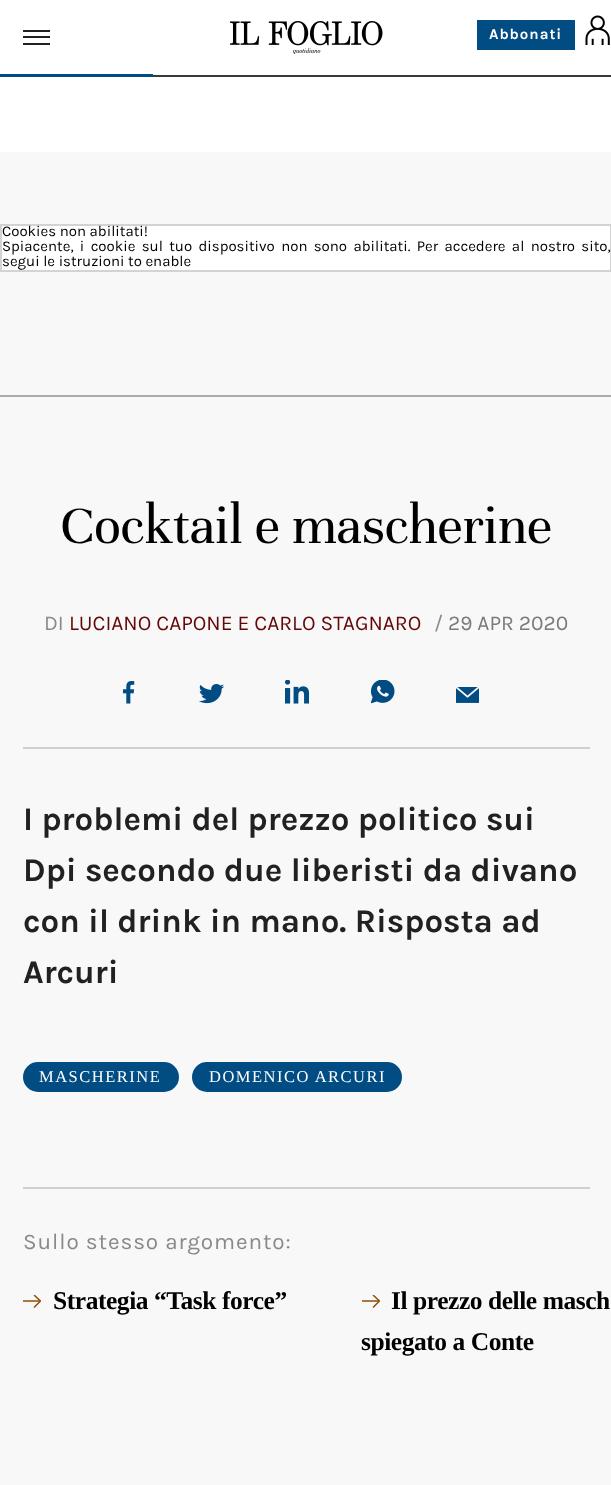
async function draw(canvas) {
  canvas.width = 611;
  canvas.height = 1485;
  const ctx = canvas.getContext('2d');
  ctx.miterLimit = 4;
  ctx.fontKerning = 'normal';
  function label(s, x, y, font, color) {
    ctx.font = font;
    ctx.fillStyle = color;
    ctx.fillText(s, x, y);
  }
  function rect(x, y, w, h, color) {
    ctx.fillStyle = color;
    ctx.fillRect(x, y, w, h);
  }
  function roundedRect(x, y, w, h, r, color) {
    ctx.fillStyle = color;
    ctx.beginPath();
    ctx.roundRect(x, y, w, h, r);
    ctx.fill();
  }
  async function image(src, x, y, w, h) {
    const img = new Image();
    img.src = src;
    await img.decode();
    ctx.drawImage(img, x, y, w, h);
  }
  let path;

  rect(0, 0, 611, 1485, '#fff');
  rect(153, 75, 458, 2, '#393939');
  rect(23, 43, 27, 2, '#212121');
  rect(23, 36, 27, 2, '#212121');
  rect(23, 30, 27, 2, '#212121');
  await image('assets/img1.png', 230, 21, 153, 33);
  rect(477, 20, 98, 30, '#004c83');
  ctx.letterSpacing = '1px';
  label('Abbonati', 489, 39, 'bold 15px Karla', '#fff');
  await image('assets/img2.png', 585, 15, 25, 30);
  rect(0, 74, 153, 3, '#004c83');
  rect(0, 152, 611, 1333, '#f8f8f8');
  ctx.fillStyle = '#fff';
  ctx.beginPath();
  ctx.rect(1, 225, 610, 46);
  ctx.fill();
  ctx.strokeStyle = '#d3d3d3';
  ctx.lineWidth = 2;
  ctx.stroke();
  ctx.letterSpacing = '0px';
  label('Cookies non abilitati!', 2, 236, '15px Karla', '#000');
  ctx.wordSpacing = '2.75px';
  label('Spiacente, i cookie sul tuo dispositivo non sono abilitati. Per accedere al nostro sito,', 2, 251, '15px Karla', '#000');
  ctx.wordSpacing = '0px';
  label('segui le istruzioni to enable', 2, 266, '15px Karla', '#000');
  rect(0, 395, 611, 2, '#aaa');
  rect(23, 747, 567, 2, '#cfcfcf');
  ctx.letterSpacing = '-0.6px';
  label('Cocktail e mascherine', 60, 543, '57px Unna', '#000');
  ctx.letterSpacing = '0px';
  label('DI', 44, 630, '21px Karla', '#898989');
  label('LUCIANO CAPONE E CARLO STAGNARO', 69, 630, '21px Karla', '#650707');
  label('/', 434, 630, '21px Karla', '#898989');
  label('29 APR 2020', 448, 630, '21px Karla', '#7a7a7a');
  await image('assets/img3.png', 123, 681, 12, 23);
  await image('assets/img4.png', 199, 684, 26, 20);
  await image('assets/img5.png', 285, 680, 24, 24);
  await image('assets/img6.png', 371, 680, 24, 24);
  await image('assets/img7.png', 456, 687, 23, 16);
  label('I problemi del prezzo politico sui', 23, 830, 'bold 33px Karla', '#212121');
  label('Dpi secondo due liberisti da divano', 23, 881, 'bold 33px Karla', '#212121');
  label('con il drink in mano. Risposta ad', 23, 932, 'bold 33px Karla', '#212121');
  label('Arcuri', 23, 983, 'bold 33px Karla', '#212121');
  rect(23, 1187, 567, 2, '#cfcfcf');
  roundedRect(23, 1062, 156, 30, 15, '#004c83');
  ctx.letterSpacing = '1.5px';
  label('MASCHERINE', 39, 1082, '16.5px Liberation Serif', '#fff');
  roundedRect(192, 1062, 210, 30, 15, '#004c83');
  label('DOMENICO ARCURI', 209, 1082, '16.5px Liberation Serif', '#fff');
  ctx.letterSpacing = '0.9px';
  label('Sullo stesso argomento:', 23, 1249, '22.5px Karla', '#898989');
  ctx.save();
  ctx.beginPath();
  ctx.rect(23, 1295, 18, 13);
  ctx.clip();
  path = new Path2D('M34 1295L40.5 1301L34 1307.5');
  ctx.strokeStyle = '#904d05';
  ctx.lineWidth = 1.5;
  ctx.stroke(path);
  ctx.restore();
  rect(23, 1300, 17, 2, '#904d05bf');
  ctx.letterSpacing = '-0.45px';
  label('Strategia “Task force”', 53, 1309, 'bold 25.5px Liberation Serif', '#000');
  ctx.save();
  ctx.beginPath();
  ctx.rect(362, 1295, 18, 13);
  ctx.clip();
  path = new Path2D('M373 1295L379.5 1301L373 1307.5');
  ctx.strokeStyle = '#904d05';
  ctx.lineWidth = 1.5;
  ctx.stroke(path);
  ctx.restore();
  rect(362, 1300, 17, 2, '#904d05bf');
  label('Il prezzo delle masch', 391, 1309, 'bold 25.5px Liberation Serif', '#000');
  label('spiegato a Conte', 361, 1350, 'bold 25.5px Liberation Serif', '#000');
}

draw(document.querySelector('canvas'));
